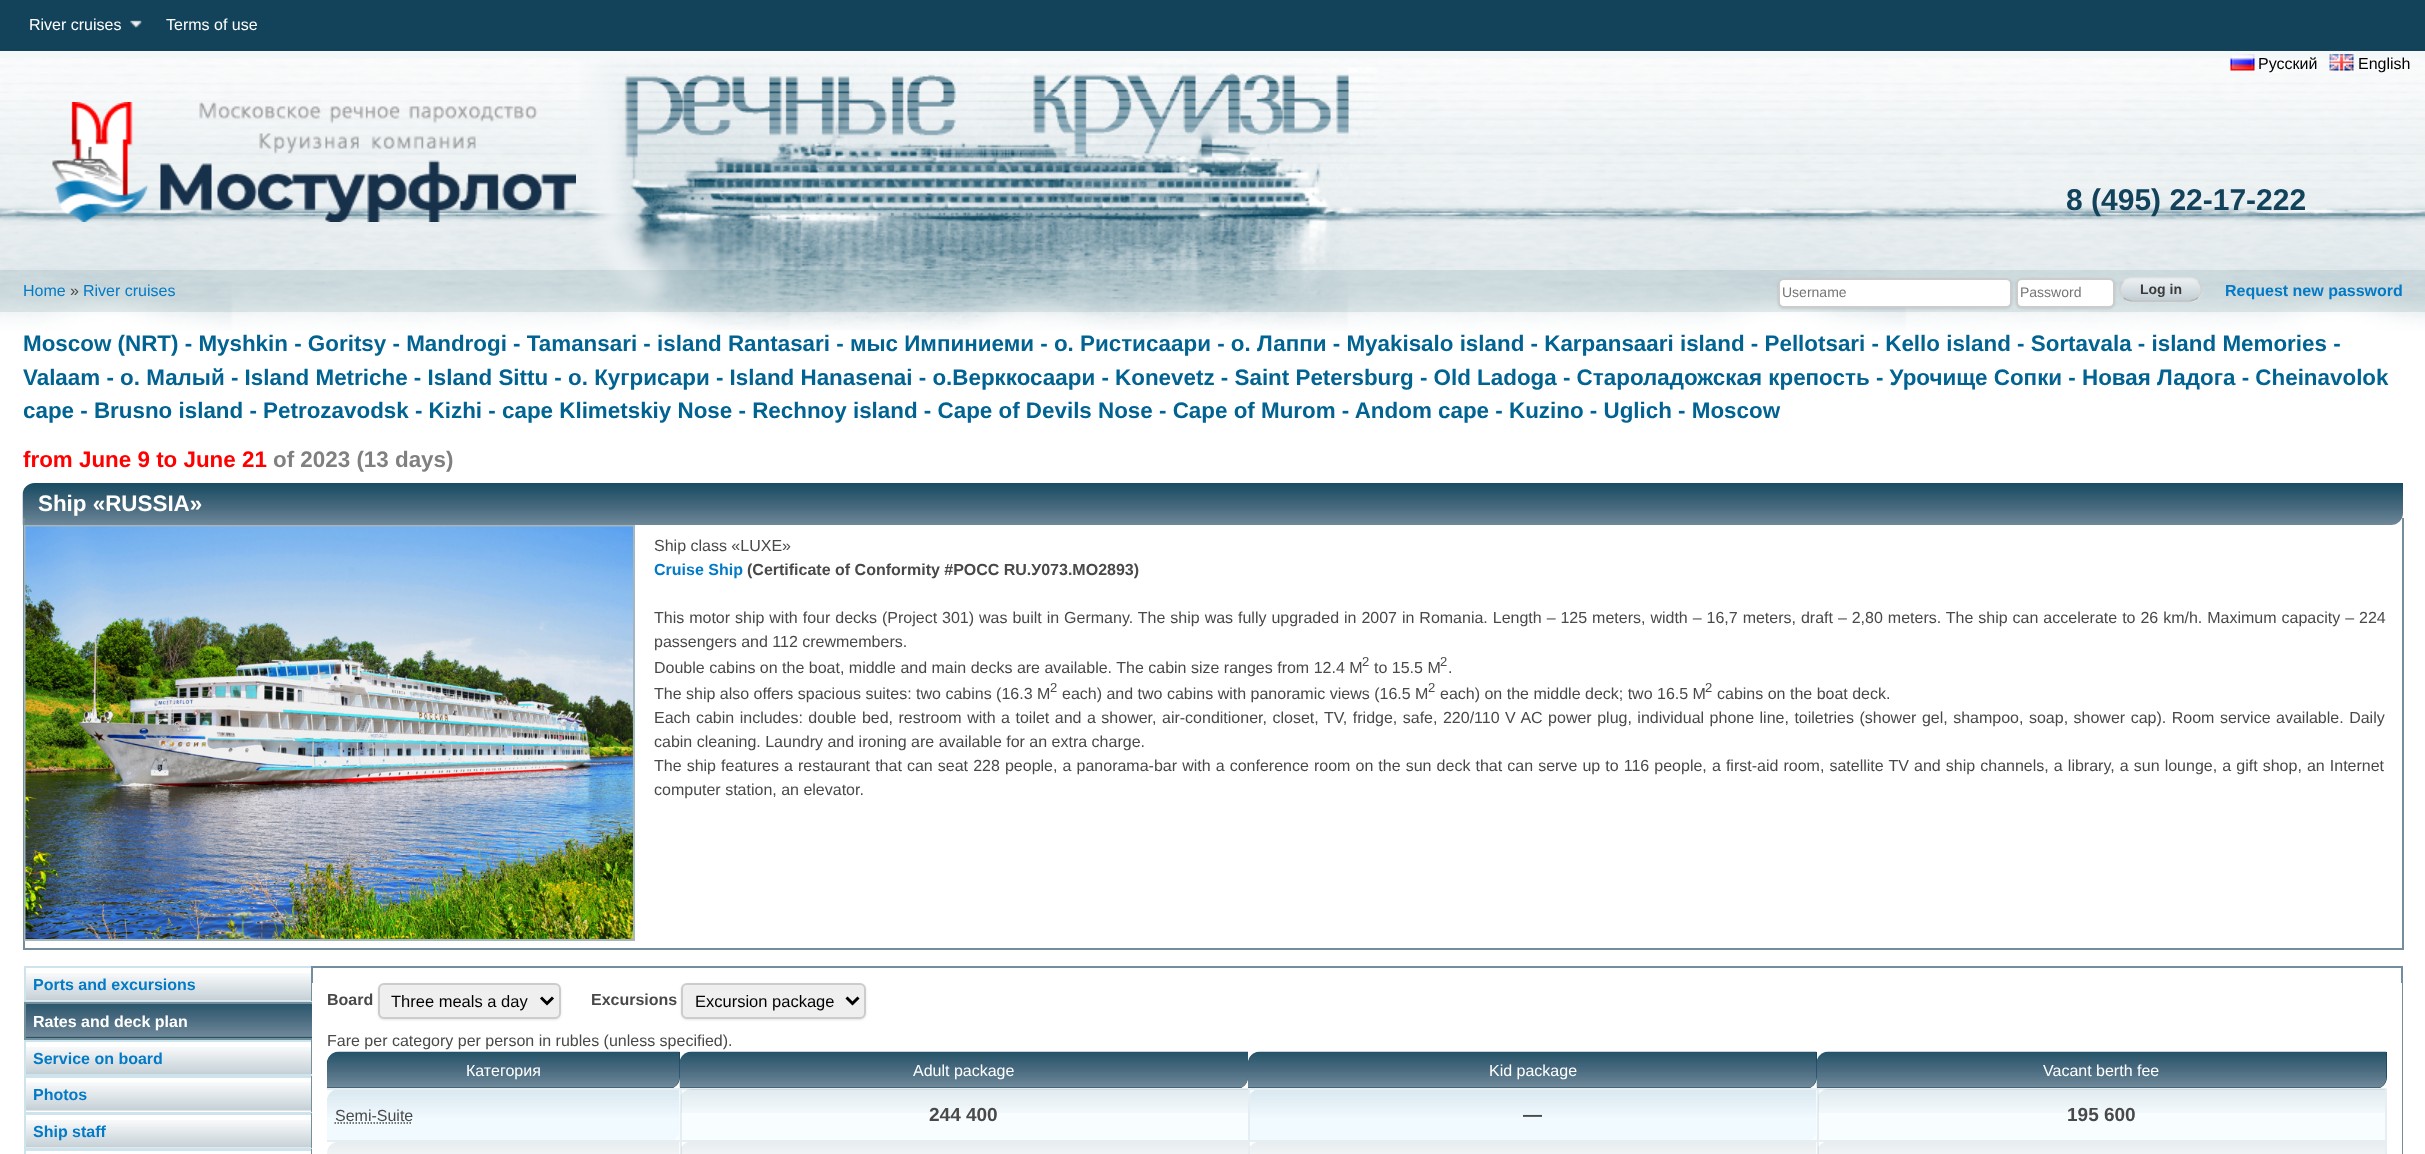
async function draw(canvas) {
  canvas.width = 2425;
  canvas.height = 1154;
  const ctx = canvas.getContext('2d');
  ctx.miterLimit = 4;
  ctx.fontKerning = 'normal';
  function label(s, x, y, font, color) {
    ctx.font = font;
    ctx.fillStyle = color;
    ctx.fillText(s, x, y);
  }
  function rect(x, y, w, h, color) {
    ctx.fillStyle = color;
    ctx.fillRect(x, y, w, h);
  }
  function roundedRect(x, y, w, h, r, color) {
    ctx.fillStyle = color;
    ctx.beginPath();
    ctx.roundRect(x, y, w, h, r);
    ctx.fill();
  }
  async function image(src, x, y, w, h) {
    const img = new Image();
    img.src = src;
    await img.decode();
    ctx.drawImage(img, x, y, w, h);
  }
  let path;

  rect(0, 0, 2425, 1154, '#fff');
  rect(0, 0, 2425, 51, '#13435b');
  await image('assets/img1.png', 130, 20, 12, 8);
  label('River cruises', 29, 30, '16px Liberation Sans', '#fff');
  label('Terms of use', 166, 30, '16px Liberation Sans', '#fff');
  await image('assets/img2.png', 0, 51, 2425, 280);
  await image('assets/img3.png', 580, 58, 798, 272);
  await image('assets/img4.png', 2230, 54, 25, 17);
  label('Русский', 2258, 69, '16px Liberation Sans', '#000');
  await image('assets/img5.png', 2329, 54, 25, 17);
  label('English', 2358, 69, '16px Liberation Sans', '#000');
  await image('assets/img6.png', 52, 102, 524, 120);
  label('8 (495) 22-17-222', 2066, 210, 'bold 30px Liberation Sans', '#13435b');
  rect(0, 270, 2425, 42, '#0a4e551a');
  label('Home', 23, 296, '16px Liberation Sans', '#027ac6');
  label('»', 70, 296, '16px Liberation Sans', '#494949');
  label('River cruises', 83, 296, '16px Liberation Sans', '#027ac6');
  ctx.fillStyle = '#0000001a';
  ctx.filter = 'blur(1px)';
  ctx.beginPath();
  ctx.roundRect(1778, 279, 234, 30, 6);
  ctx.fill();
  ctx.filter = 'none';
  ctx.fillStyle = '#fff';
  ctx.beginPath();
  ctx.roundRect(1779, 279, 232, 28, 5);
  ctx.fill();
  ctx.strokeStyle = '#ccc';
  ctx.lineWidth = 2;
  ctx.stroke();
  label('Username', 1782, 297, '14px Liberation Sans', '#757575');
  ctx.fillStyle = '#0000001a';
  ctx.filter = 'blur(1px)';
  ctx.beginPath();
  ctx.roundRect(2016, 279, 99, 30, 6);
  ctx.fill();
  ctx.filter = 'none';
  ctx.fillStyle = '#fff';
  ctx.beginPath();
  ctx.roundRect(2017, 279, 97, 28, 5);
  ctx.fill();
  ctx.stroke();
  label('Password', 2020, 297, '14px Liberation Sans', '#757575');
  roundedRect(2120, 278, 82, 24, 12, '#fff');
  await image('assets/img7.png', 2119, 278, 83, 22);
  path = new Path2D('M2123.5 281.5C2125.5 279.5 2128.5 278 2131.5 278H2190C2193 278 2196 279.5 2198 281.5');
  ctx.strokeStyle = '#e4e4e4';
  ctx.lineWidth = 1.5;
  ctx.stroke(path);
  path = new Path2D('M2198 281.5C2202.5 286 2202.5 293 2198 297.5');
  ctx.strokeStyle = '#d2d2d2';
  ctx.stroke(path);
  path = new Path2D('M2198 297.5C2196 299.5 2193 301 2190 301H2131.5C2128.5 301 2125.5 299.5 2123.5 297.5');
  ctx.strokeStyle = '#b4b4b4';
  ctx.stroke(path);
  path = new Path2D('M2123.5 297.5C2119 293 2119 286 2123.5 281.5');
  ctx.strokeStyle = '#d2d2d2';
  ctx.stroke(path);
  label('Log in', 2140, 294, 'bold 14px Liberation Sans', '#3a3a3a');
  label('Request new password', 2225, 296, 'bold 16px Liberation Sans', '#027ac6');
  label('Moscow (NRT) - Myshkin - Goritsy - Mandrogi - Tamansari - island Rantasari - мыс Импиниеми - о. Ристисаари - о. Лаппи - Myakisalo island - Karpansaari island - Pellotsari - Kello island - Sortavala - island Memories -', 23, 351, 'bold 22.4px Liberation Sans', '#006392');
  label('Valaam - о. Малый - Island Metriche - Island Sittu - о. Кугрисари - Island Hanasenai - о.Верккосаари - Konevetz - Saint Petersburg - Old Ladoga - Староладожская крепость - Урочище Сопки - Новая Ладога - Cheinavolok', 23, 385, 'bold 22.4px Liberation Sans', '#006392');
  label('cape - Brusno island - Petrozavodsk - Kizhi - cape Klimetskiy Nose - Rechnoy island - Cape of Devils Nose - Cape of Murom - Andom cape - Kuzino - Uglich - Moscow', 23, 418, 'bold 22.4px Liberation Sans', '#006392');
  label('from June 9 to June 21', 23, 467, 'bold 22.4px Liberation Sans', '#f00');
  label('of 2023 (13 days)', 273, 467, 'bold 22.4px Liberation Sans', '#808080');
  await image('assets/img8.png', 22, 483, 2381, 42);
  label('Ship «RUSSIA»', 38, 511, 'bold 22.4px Liberation Sans', '#fff');
  rect(2402, 518, 2, 432, '#738f9e');
  rect(23, 948, 2380, 2, '#738f9e');
  rect(23, 518, 2, 432, '#738f9e');
  ctx.strokeStyle = '#a4b6c0';
  ctx.lineWidth = 2;
  ctx.strokeRect(25, 526, 609, 414);
  await image('assets/img9.png', 25, 526, 608, 413);
  label('Ship class «LUXE»', 654, 551, '16px Liberation Sans', '#494949');
  label('Cruise Ship', 654, 575, 'bold 16px Liberation Sans', '#027ac6');
  label('(Certificate of Conformity #РОСС RU.У073.МО2893)', 747, 575, 'bold 16px Liberation Sans', '#494949');
  ctx.wordSpacing = '0.5px';
  label('This motor ship with four decks (Project 301) was built in Germany. The ship was fully upgraded in 2007 in Romania. Length – 125 meters, width – 16,7 meters, draft – 2,80 meters. The ship can accelerate to 26 km/h. Maximum capacity – 224', 654, 623, '16px Liberation Sans', '#494949');
  ctx.wordSpacing = '0px';
  label('passengers and 112 crewmembers.', 654, 647, '16px Liberation Sans', '#494949');
  label('Double cabins on the boat, middle and main decks are available. The cabin size ranges from 12.4 M', 654, 673, '16px Liberation Sans', '#494949');
  label('2', 1362, 666, '13px Liberation Sans', '#494949');
  label('to 15.5 M', 1374, 673, '16px Liberation Sans', '#494949');
  label('2', 1440, 666, '13px Liberation Sans', '#494949');
  label('.', 1448, 673, '16px Liberation Sans', '#494949');
  label('The ship also offers spacious suites: two cabins (16.3 M', 654, 699, '16px Liberation Sans', '#494949');
  label('2', 1050, 692, '13px Liberation Sans', '#494949');
  label('each) and two cabins with panoramic views (16.5 M', 1062, 699, '16px Liberation Sans', '#494949');
  label('2', 1428, 692, '13px Liberation Sans', '#494949');
  label('each) on the middle deck; two 16.5 M', 1440, 699, '16px Liberation Sans', '#494949');
  label('2', 1705, 692, '13px Liberation Sans', '#494949');
  label('cabins on the boat deck.', 1717, 699, '16px Liberation Sans', '#494949');
  ctx.wordSpacing = '1.05px';
  label('Each cabin includes: double bed, restroom with a toilet and a shower, air-conditioner, closet, TV, fridge, safe, 220/110 V AC power plug, individual phone line, toiletries (shower gel, shampoo, soap, shower cap). Room service available. Daily', 654, 723, '16px Liberation Sans', '#494949');
  ctx.wordSpacing = '0px';
  label('cabin cleaning. Laundry and ironing are available for an extra charge.', 654, 747, '16px Liberation Sans', '#494949');
  ctx.wordSpacing = '0.65px';
  label('The ship features a restaurant that can seat 228 people, a panorama-bar with a conference room on the sun deck that can serve up to 116 people, a first-aid room, satellite TV and ship channels, a library, a sun lounge, a gift shop, an Internet', 654, 771, '16px Liberation Sans', '#494949');
  ctx.wordSpacing = '0px';
  label('computer station, an elevator.', 654, 795, '16px Liberation Sans', '#494949');
  ctx.strokeStyle = '#738f9e';
  ctx.strokeRect(312, 967, 2090, 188);
  await image('assets/img10.png', 26, 973, 285, 28);
  rect(24, 966, 288, 2, '#cee4ec');
  rect(311, 966, 1, 2, '#738f9e');
  rect(24, 1001, 288, 1, '#cee4ec');
  rect(24, 966, 2, 36, '#cee4ec');
  label('Ports and excursions', 33, 990, 'bold 16px Liberation Sans', '#027ac6');
  await image('assets/img11.png', 26, 1004, 286, 34);
  rect(24, 1002, 288, 2, '#738f9e');
  rect(24, 1038, 288, 2, '#738f9e');
  rect(24, 1002, 2, 38, '#738f9e');
  label('Rates and deck plan', 33, 1027, 'bold 16px Liberation Sans', '#fff');
  await image('assets/img12.png', 26, 1047, 285, 27);
  rect(24, 1040, 288, 2, '#cee4ec');
  rect(311, 1040, 1, 2, '#738f9e');
  rect(24, 1074, 288, 4, '#cee4ec');
  rect(24, 1040, 2, 36, '#cee4ec');
  label('Service on board', 33, 1064, 'bold 16px Liberation Sans', '#027ac6');
  await image('assets/img13.png', 26, 1082, 285, 29);
  rect(311, 1076, 1, 2, '#738f9e');
  rect(24, 1112, 288, 3, '#cee4ec');
  rect(24, 1076, 2, 37, '#cee4ec');
  label('Photos', 33, 1100, 'bold 16px Liberation Sans', '#027ac6');
  await image('assets/img10.png', 26, 1120, 285, 28);
  rect(311, 1113, 1, 2, '#738f9e');
  rect(24, 1148, 288, 3, '#cee4ec');
  rect(24, 1113, 2, 41, '#cee4ec');
  label('Ship staff', 33, 1137, 'bold 16px Liberation Sans', '#027ac6');
  rect(311, 1149, 1, 5, '#738f9e');
  rect(312, 983, 2090, 171, '#fff');
  label('Board', 327, 1005, 'bold 16px Liberation Sans', '#494949');
  ctx.fillStyle = '#0000001a';
  ctx.filter = 'blur(1px)';
  ctx.beginPath();
  ctx.roundRect(378, 984, 183, 36, 6);
  ctx.fill();
  ctx.filter = 'none';
  ctx.fillStyle = '#efefef';
  ctx.beginPath();
  ctx.roundRect(379, 984, 181, 34, 5);
  ctx.fill();
  ctx.strokeStyle = '#ccc';
  ctx.stroke();
  path = new Path2D('M541 997.5L547 1003.5L553 997.5');
  ctx.strokeStyle = '#000';
  ctx.lineWidth = 3;
  ctx.stroke(path);
  label('Three meals a day', 391, 1007, '16.5px Liberation Sans', '#000');
  label('Excursions', 591, 1005, 'bold 16px Liberation Sans', '#494949');
  ctx.fillStyle = '#0000001a';
  ctx.filter = 'blur(1px)';
  ctx.beginPath();
  ctx.roundRect(681, 984, 185, 36, 6);
  ctx.fill();
  ctx.filter = 'none';
  ctx.fillStyle = '#efefef';
  ctx.beginPath();
  ctx.roundRect(682, 984, 183, 34, 5);
  ctx.fill();
  ctx.strokeStyle = '#ccc';
  ctx.lineWidth = 2;
  ctx.stroke();
  path = new Path2D('M846.5 997.5L852.5 1003.5L858.5 997.5');
  ctx.strokeStyle = '#000';
  ctx.lineWidth = 3;
  ctx.stroke(path);
  label('Excursion package', 695, 1007, '16.5px Liberation Sans', '#000');
  label('Fare per category per person in rubles (unless specified).', 327, 1046, '16px Liberation Sans', '#494949');
  ctx.fillStyle = '#13435b';
  ctx.beginPath();
  ctx.roundRect(327, 1052, 353, 37, [12, 0, 12, 0]);
  ctx.fill();
  await image('assets/img14.png', 327, 1051, 353, 37);
  label('Категория', 466, 1076, '16px Liberation Sans', '#fff');
  ctx.fillStyle = '#13435b';
  ctx.beginPath();
  ctx.roundRect(680, 1052, 568, 37, [12, 0, 12, 0]);
  ctx.fill();
  await image('assets/img15.png', 679, 1051, 569, 37);
  label('Adult package', 913, 1076, '16px Liberation Sans', '#fff');
  ctx.fillStyle = '#13435b';
  ctx.beginPath();
  ctx.roundRect(1248, 1052, 569, 37, [12, 0, 12, 0]);
  ctx.fill();
  await image('assets/img16.png', 1248, 1051, 569, 37);
  label('Kid package', 1489, 1076, '16px Liberation Sans', '#fff');
  ctx.fillStyle = '#13435b';
  ctx.beginPath();
  ctx.roundRect(1817, 1052, 570, 37, [12, 0, 12, 0]);
  ctx.fill();
  await image('assets/img17.png', 1816, 1051, 571, 37);
  rect(2385, 1088, 2, 66, '#e5eef2');
  rect(680, 1140, 2, 14, '#e5eef2');
  rect(327, 1090, 2058, 50, '#f8fdff');
  rect(1248, 1140, 2, 14, '#e5eef2');
  rect(1817, 1140, 2, 14, '#e5eef2');
  rect(1817, 1140, 570, 2, '#e5eef2');
  rect(1817, 1088, 2, 54, '#e5eef2');
  rect(1248, 1140, 570, 2, '#e5eef2');
  rect(1248, 1088, 2, 54, '#e5eef2');
  rect(680, 1140, 570, 2, '#e5eef2');
  rect(680, 1088, 2, 54, '#e5eef2');
  rect(327, 1088, 2060, 2, '#e5eef2');
  label('Vacant berth fee', 2043, 1076, '16px Liberation Sans', '#fff');
  await image('assets/img18.png', 327, 1142, 353, 12);
  await image('assets/img19.png', 681, 1142, 567, 12);
  await image('assets/img20.png', 1250, 1142, 567, 12);
  await image('assets/img19.png', 1818, 1142, 567, 12);
  await image('assets/img21.png', 327, 1090, 353, 50);
  rect(327, 1140, 354, 2, '#e5eef2');
  label('Semi-Suite', 335, 1121, '16px Liberation Sans', '#494949');
  path = new Path2D('M334.5 1123H412.5');
  ctx.strokeStyle = '#494949';
  ctx.lineWidth = 1.5;
  ctx.setLineDash([1.5, 1.5]);
  ctx.stroke(path);
  await image('assets/img22.png', 681, 1089, 567, 24);
  label('244 400', 929, 1121, 'bold 19px Liberation Sans', '#494949');
  await image('assets/img23.png', 1250, 1090, 567, 50);
  label('—', 1523, 1121, 'bold 19px Liberation Sans', '#494949');
  await image('assets/img22.png', 1818, 1089, 567, 24);
  label('195 600', 2067, 1121, 'bold 19px Liberation Sans', '#494949');
}

draw(document.querySelector('canvas'));
